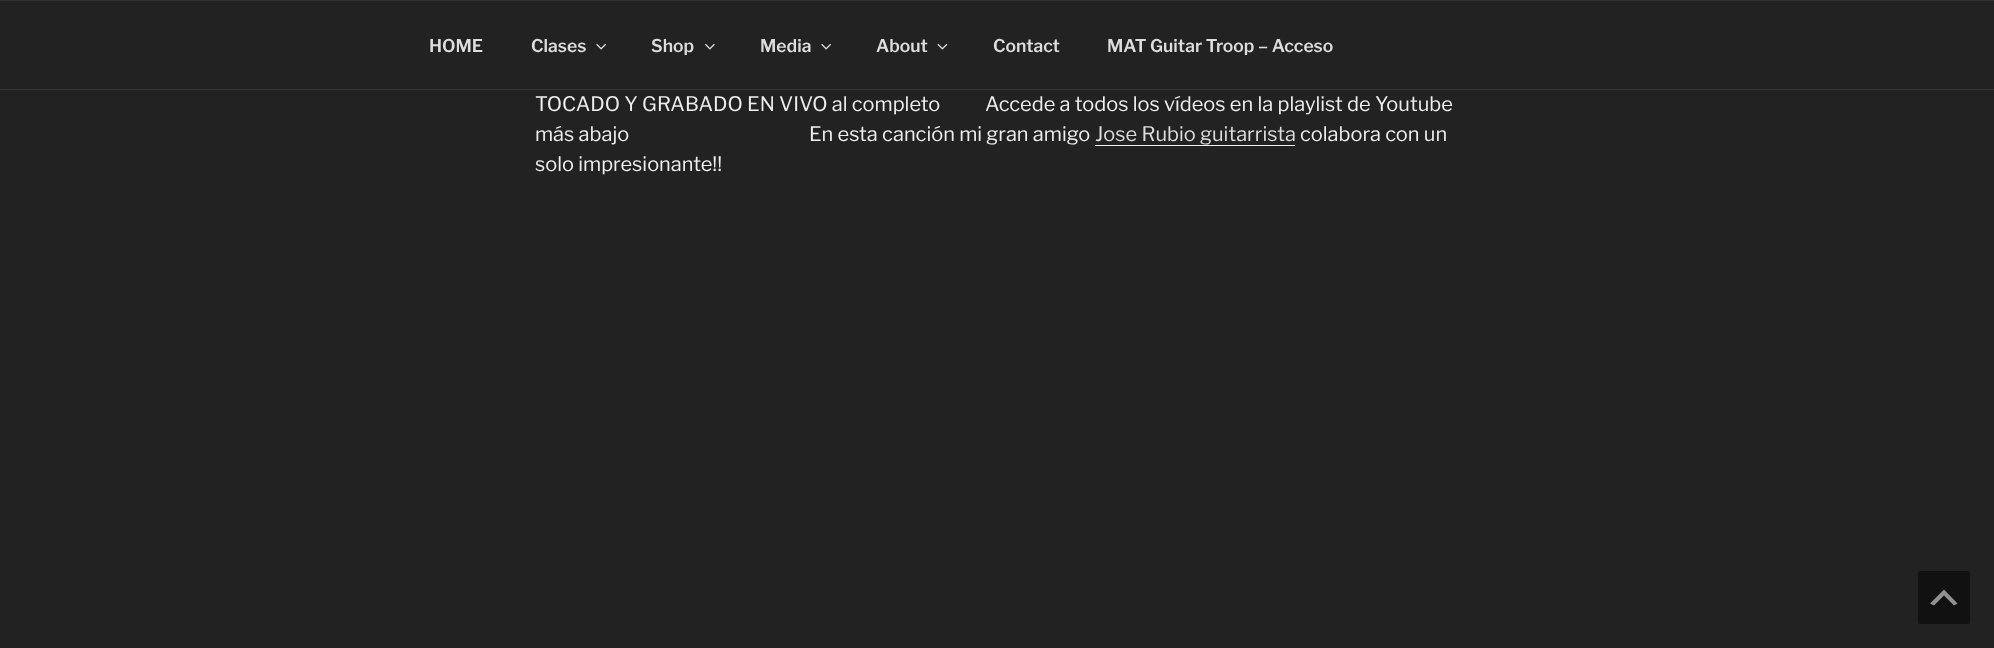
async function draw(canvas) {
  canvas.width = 1994;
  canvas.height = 648;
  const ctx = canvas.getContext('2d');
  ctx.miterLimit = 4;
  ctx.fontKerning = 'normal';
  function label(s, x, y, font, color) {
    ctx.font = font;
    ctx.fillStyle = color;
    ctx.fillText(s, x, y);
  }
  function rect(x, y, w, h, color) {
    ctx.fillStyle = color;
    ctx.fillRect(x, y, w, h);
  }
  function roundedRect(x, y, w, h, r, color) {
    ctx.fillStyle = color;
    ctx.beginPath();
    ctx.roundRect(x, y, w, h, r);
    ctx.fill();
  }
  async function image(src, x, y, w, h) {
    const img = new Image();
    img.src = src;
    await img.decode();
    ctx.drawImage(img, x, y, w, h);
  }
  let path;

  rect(0, 0, 1994, 648, '#222');
  rect(0, 0, 1994, 1, '#333');
  rect(0, 89, 1994, 1, '#333');
  label('HOME', 429, 52, '100 17.5px "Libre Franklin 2"', '#ddd');
  label('Clases', 531, 52, '100 17.5px "Libre Franklin 2"', '#ddd');
  await image('assets/img1.png', 596, 43, 10, 7);
  label('Shop', 651, 52, '100 17.5px "Libre Franklin 2"', '#ddd');
  await image('assets/img2.png', 705, 43, 10, 7);
  label('Media', 760, 52, '100 17.5px "Libre Franklin 2"', '#ddd');
  await image('assets/img1.png', 821, 43, 10, 7);
  label('About', 876, 52, '100 17.5px "Libre Franklin 2"', '#ddd');
  await image('assets/img3.png', 937, 43, 11, 7);
  label('Contact', 993, 52, '100 17.5px "Libre Franklin 2"', '#ddd');
  label('MAT Guitar Troop – Acceso', 1107, 52, '100 17.5px "Libre Franklin 2"', '#ddd');
  label('TOCADO Y GRABADO EN VIVO al completo', 535, 111, '100 20px Libre Franklin', '#eee');
  label('Accede a todos los vídeos en la playlist de Youtube', 985, 111, '100 20px Libre Franklin', '#eee');
  label('más abajo', 535, 141, '100 20px Libre Franklin', '#eee');
  label('En esta canción mi gran amigo', 809, 141, '100 20px Libre Franklin', '#eee');
  label('Jose Rubio guitarrista', 1095, 141, '100 20px Libre Franklin', '#ddd');
  rect(1095, 145, 200, 1, '#f0f0f0');
  label('colabora con un', 1300, 141, '100 20px Libre Franklin', '#eee');
  label('solo impresionante!!', 535, 171, '100 20px Libre Franklin', '#eee');
  roundedRect(1918, 571, 52, 53, 2.5, '#111');
  ctx.fillStyle = '#919191';
  path = new Path2D('M1954 605.5L1944 595.5L1934 605.5L1930 603.5L1944 589.5L1957.5 603.5Z');
  ctx.fill(path);
}

draw(document.querySelector('canvas'));
